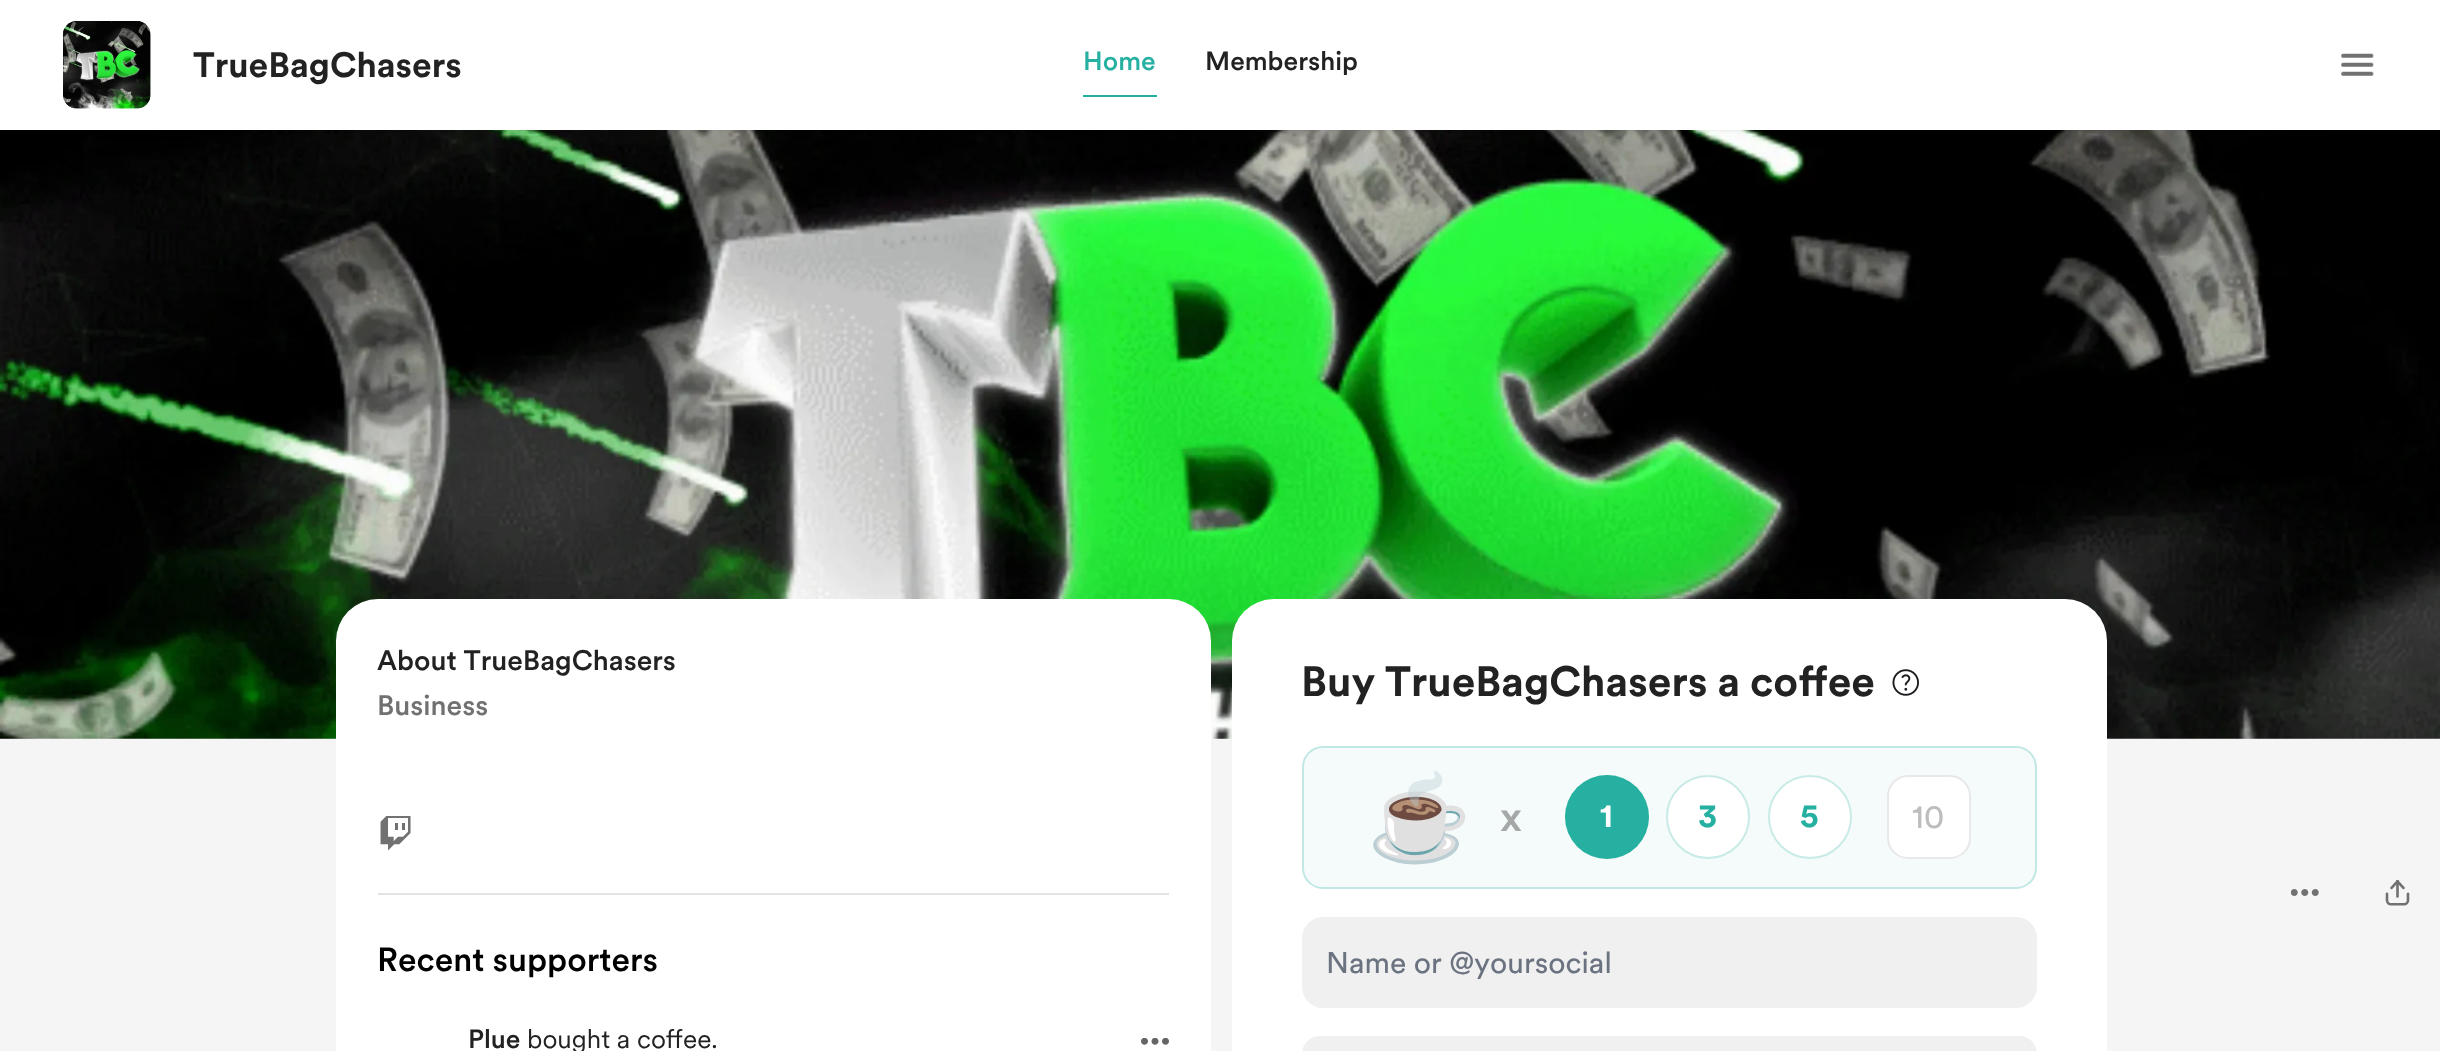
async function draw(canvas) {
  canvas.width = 2440;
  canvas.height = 1051;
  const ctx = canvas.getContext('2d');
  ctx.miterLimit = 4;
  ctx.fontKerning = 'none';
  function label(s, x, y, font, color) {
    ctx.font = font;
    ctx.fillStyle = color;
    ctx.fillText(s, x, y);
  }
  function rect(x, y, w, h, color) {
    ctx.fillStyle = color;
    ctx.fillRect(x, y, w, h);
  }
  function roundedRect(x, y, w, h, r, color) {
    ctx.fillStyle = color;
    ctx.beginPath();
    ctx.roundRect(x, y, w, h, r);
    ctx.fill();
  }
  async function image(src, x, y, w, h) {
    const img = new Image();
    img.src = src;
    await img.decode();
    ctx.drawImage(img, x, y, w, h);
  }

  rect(0, 0, 2440, 1051, '#f5f5f5');
  await image('assets/img4.png', 0, 738, 2440, 1);
  await image('assets/img5.png', 0, 130, 2440, 609);
  ctx.fillStyle = '#0000000f';
  ctx.filter = 'blur(1px)';
  ctx.beginPath();
  ctx.rect(0, 2, 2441, 129);
  ctx.fill();
  ctx.filter = 'none';
  rect(0, 0, 2440, 130, '#fff');
  await image('assets/img1.png', 63, 21, 88, 88);
  await image('assets/img2.png', 63, 21, 88, 88);
  label('TrueBagChasers', 193, 77, 'bold 35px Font', '#222');
  label('Home', 1083, 70, '500 26.25px Font', '#26b0a1');
  rect(1083, 95, 74, 2, '#26b0a1');
  label('Membership', 1205, 70, '500 26.25px Font', '#222');
  await image('assets/img3.png', 2341, 53, 33, 23);
  roundedRect(336, 599, 875, 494, 42, '#fff');
  rect(378, 893, 791, 2, '#e4e4e4');
  label('About TrueBagChasers', 377, 670, '500 28px Font', '#222');
  label('Business', 377, 715, '500 28px Font', '#717171');
  await image('assets/img6.png', 380, 816, 31, 35);
  label('Recent supporters', 377, 971, '500 33.25px Font', '#000');
  label('Plue', 468, 1048, '500 26.25px Font', '#222');
  label('bought a coffee.', 527, 1048, '26.25px "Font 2"', '#222');
  await image('assets/img7.png', 1141, 1038, 28, 7);
  roundedRect(1232, 599, 875, 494, 42, '#fff');
  label('Buy TrueBagChasers a coffee', 1301, 696, 'bold 42px Font', '#222');
  await image('assets/img8.png', 1892, 669, 27, 27);
  roundedRect(1302, 746, 735, 143, 21, '#f5fbfb');
  ctx.beginPath();
  ctx.roundRect(1303, 747, 733, 141, 20);
  ctx.strokeStyle = '#26b0a140';
  ctx.lineWidth = 2;
  ctx.stroke();
  label('☕', 1367, 847, '84px Noto Color Emoji', '#000');
  label('x', 1500, 831, '500 42px Font', '#a6a8a8');
  ctx.fillStyle = '#26b0a1';
  ctx.beginPath();
  ctx.arc(1607, 817, 42, 0, 2 * Math.PI);
  ctx.fill();
  ctx.beginPath();
  ctx.arc(1607, 817, 41, 0, 2 * Math.PI);
  ctx.stroke();
  label('1', 1600, 827, 'bold 33.25px Font', '#fff');
  ctx.beginPath();
  ctx.arc(1708, 817, 42, 0, 2 * Math.PI);
  ctx.fill();
  ctx.beginPath();
  ctx.arc(1708, 817, 41, 0, 2 * Math.PI);
  ctx.stroke();
  label('3', 1698, 827, 'bold 33.25px Font', '#26b0a1');
  ctx.fillStyle = '#fff';
  ctx.beginPath();
  ctx.arc(1810, 817, 42, 0, 2 * Math.PI);
  ctx.fill();
  ctx.beginPath();
  ctx.arc(1810, 817, 41, 0, 2 * Math.PI);
  ctx.stroke();
  label('5', 1800, 827, 'bold 33.25px Font', '#26b0a1');
  roundedRect(1887, 775, 84, 84, 21, '#fff');
  ctx.beginPath();
  ctx.roundRect(1888, 776, 82, 82, 20);
  ctx.strokeStyle = '#2222221a';
  ctx.stroke();
  label('10', 1912, 828, '33.25px Font', '#bdbdbd');
  roundedRect(1302, 917, 735, 91, 21, '#f0f0f0');
  label('Name or @yoursocial', 1326, 973, '29.75px Font', '#6b7280');
  roundedRect(1302, 1036, 735, 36, 21, '#f0f0f0');
  await image('assets/img9.png', 2291, 889, 28, 7);
  await image('assets/img10.png', 2385, 880, 25, 26);
}

draw(document.querySelector('canvas'));
